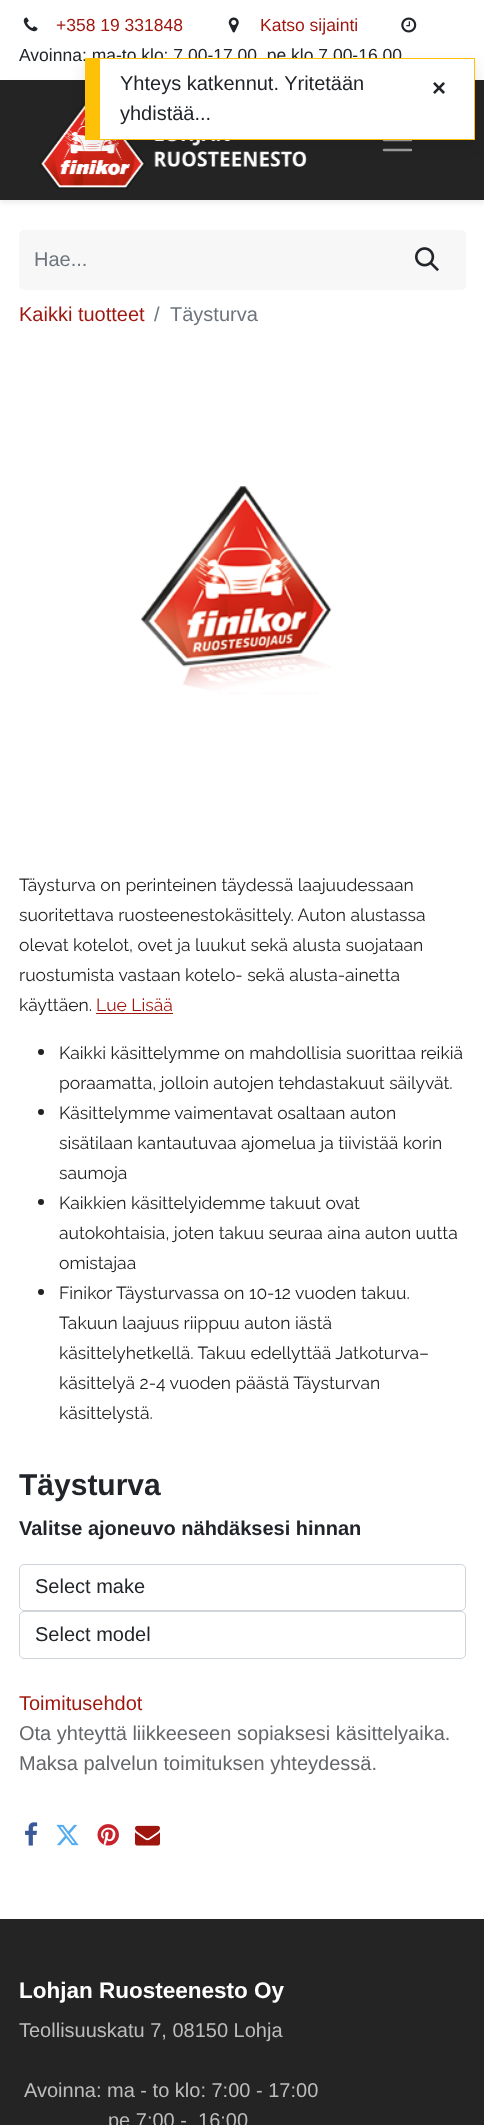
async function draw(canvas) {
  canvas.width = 484;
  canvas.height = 2125;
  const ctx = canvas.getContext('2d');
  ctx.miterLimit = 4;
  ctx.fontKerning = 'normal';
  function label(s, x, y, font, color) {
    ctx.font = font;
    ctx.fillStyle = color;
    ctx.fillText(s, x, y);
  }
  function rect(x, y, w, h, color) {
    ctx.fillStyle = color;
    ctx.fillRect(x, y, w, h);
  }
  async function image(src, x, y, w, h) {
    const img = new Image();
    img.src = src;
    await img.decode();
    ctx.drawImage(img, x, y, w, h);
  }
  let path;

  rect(0, 0, 484, 2125, '#fff');
  await image('assets/img1.png', 23, 17, 15, 15);
  label('+358 19 331848', 56, 31, '17.5px Liberation Sans', '#9e160d');
  await image('assets/img2.png', 228, 17, 11, 16);
  label('Katso sijainti', 260, 31, '17.5px Liberation Sans', '#9e160d');
  await image('assets/img3.png', 401, 17, 16, 16);
  label('Avoinna: ma-to klo: 7.00-17.00, pe klo 7.00-16.00', 19, 61, '17.5px Liberation Sans', '#212529');
  ctx.fillStyle = '#00000012';
  ctx.filter = 'blur(2.5px)';
  ctx.beginPath();
  ctx.rect(0, 83, 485, 120);
  ctx.fill();
  ctx.filter = 'none';
  rect(0, 80, 484, 120, '#242424');
  await image('assets/img4.png', 39, 101, 268, 89);
  path = new Path2D('M384 130H411M384 140H411M384 150H411');
  ctx.strokeStyle = '#9c9c9c';
  ctx.lineWidth = 2.5;
  ctx.lineCap = 'round';
  ctx.stroke(path);
  ctx.fillStyle = '#f8f7f7';
  ctx.beginPath();
  ctx.roundRect(19, 230, 370, 60, [5, 0, 0, 5]);
  ctx.fill();
  label('Hae...', 34, 266, '20px Liberation Sans', '#6c757d');
  ctx.fillStyle = '#f8f7f7';
  ctx.beginPath();
  ctx.roundRect(388, 230, 78, 60, [0, 5, 5, 0]);
  ctx.fill();
  await image('assets/img5.png', 415, 247, 24, 25);
  label('Kaikki tuotteet', 19, 321, '20px Liberation Sans', '#9e160d');
  label('/', 154, 321, '20px Liberation Sans', '#6c757d');
  label('Täysturva', 170, 321, '20px Liberation Sans', '#6c757d');
  await image('assets/img6.png', 141, 486, 191, 208);
  label('Täysturva on perinteinen täydessä laajuudessaan', 19, 891, '17.5px Raleway', '#222');
  label('suoritettava ruosteenestokäsittely. Auton alustassa', 19, 921, '17.5px Raleway', '#222');
  label('olevat kotelot, ovet ja luukut sekä alusta suojataan', 19, 951, '17.5px Raleway', '#222');
  label('ruostumista vastaan kotelo- sekä alusta-ainetta', 19, 981, '17.5px Raleway', '#222');
  label('käyttäen.', 19, 1011, '17.5px Raleway', '#222');
  label('Lue Lisää', 96, 1011, '17.5px Raleway', '#9e160d');
  rect(96, 1013, 77, 1, '#9e160d');
  ctx.fillStyle = '#222';
  ctx.beginPath();
  ctx.arc(41, 1052, 3, 0, 2 * Math.PI);
  ctx.fill();
  label('Kaikki käsittelymme on mahdollisia suorittaa reikiä', 59, 1059, '17.5px Raleway', '#222');
  label('poraamatta, jolloin autojen tehdastakuut säilyvät.', 59, 1089, '17.5px Raleway', '#222');
  ctx.beginPath();
  ctx.arc(41, 1112, 3, 0, 2 * Math.PI);
  ctx.fill();
  label('Käsittelymme vaimentavat osaltaan auton', 59, 1119, '17.5px Raleway', '#222');
  label('sisätilaan kantautuvaa ajomelua ja tiivistää korin', 59, 1149, '17.5px Raleway', '#222');
  label('saumoja', 59, 1179, '17.5px Raleway', '#222');
  ctx.beginPath();
  ctx.arc(41, 1202, 3, 0, 2 * Math.PI);
  ctx.fill();
  label('Kaikkien käsittelyidemme takuut ovat', 59, 1209, '17.5px Raleway', '#222');
  label('autokohtaisia, joten takuu seuraa aina auton uutta', 59, 1239, '17.5px Raleway', '#222');
  label('omistajaa', 59, 1269, '17.5px Raleway', '#222');
  ctx.beginPath();
  ctx.arc(41, 1292, 3, 0, 2 * Math.PI);
  ctx.fill();
  label('Finikor Täysturvassa on 10-12 vuoden takuu.', 59, 1299, '17.5px Raleway', '#222');
  label('Takuun laajuus riippuu auton iästä', 59, 1329, '17.5px Raleway', '#222');
  label('käsittelyhetkellä. Takuu edellyttää Jatkoturva–', 59, 1359, '17.5px Raleway', '#222');
  label('käsittelyä 2-4 vuoden päästä Täysturvan', 59, 1389, '17.5px Raleway', '#222');
  label('käsittelystä.', 59, 1419, '17.5px Raleway', '#222');
  label('Täysturva', 19, 1495, 'bold 30px Liberation Sans', '#212529');
  label('Valitse ajoneuvo nähdäksesi hinnan', 19, 1535, 'bold 20px Liberation Sans', '#212529');
  ctx.beginPath();
  ctx.roundRect(19.5, 1564.5, 446, 46, 4.5);
  ctx.strokeStyle = '#ced4da';
  ctx.lineWidth = 1;
  ctx.stroke();
  label('Select make', 35, 1593, '20px Liberation Sans', '#212529');
  ctx.beginPath();
  ctx.roundRect(19.5, 1611.5, 446, 47, 4.5);
  ctx.stroke();
  label('Select model', 35, 1641, '20px Liberation Sans', '#212529');
  label('Toimitusehdot', 19, 1710, '20px Liberation Sans', '#9e160d');
  label('Ota yhteyttä liikkeeseen sopiaksesi käsittelyaika.', 19, 1740, '20px Liberation Sans', '#646669');
  label('Maksa palvelun toimituksen yhteydessä.', 19, 1770, '20px Liberation Sans', '#646669');
  await image('assets/img7.png', 25, 1822, 13, 24);
  await image('assets/img8.png', 56, 1824, 23, 22);
  await image('assets/img9.png', 97, 1824, 22, 22);
  await image('assets/img10.png', 135, 1825, 25, 21);
  rect(0, 1919, 484, 206, '#242424');
  label('Lohjan Ruosteenesto Oy', 19, 1998, 'bold 22.5px Liberation Sans', '#fff');
  label('Teollisuuskatu 7, 08150 Lohja', 19, 2037, '20px Liberation Sans', '#bdbdbd');
  label('Avoinna: ma - to klo: 7:00 - 17:00', 24, 2097, '20px Liberation Sans', '#bdbdbd');
  label('pe 7:00 -  16:00', 108, 2127, '20px Liberation Sans', '#bdbdbd');
  ctx.fillStyle = '#0000001a';
  ctx.filter = 'blur(7.5px)';
  ctx.beginPath();
  ctx.rect(85, 63, 390, 82);
  ctx.fill();
  ctx.filter = 'none';
  rect(100, 59, 374, 80, '#fff');
  rect(100, 58, 375, 1, '#ffc107');
  rect(474, 58, 1, 82, '#ffc107');
  rect(100, 139, 375, 1, '#ffc107');
  rect(85, 58, 15, 82, '#ffc107');
  label('Yhteys katkennut. Yritetään', 120, 90, '20px Liberation Sans', '#212529');
  label('yhdistää...', 120, 120, '20px Liberation Sans', '#212529');
  label('×', 432, 96, 'bold 24px Liberation Sans', '#212529');
}

draw(document.querySelector('canvas'));
